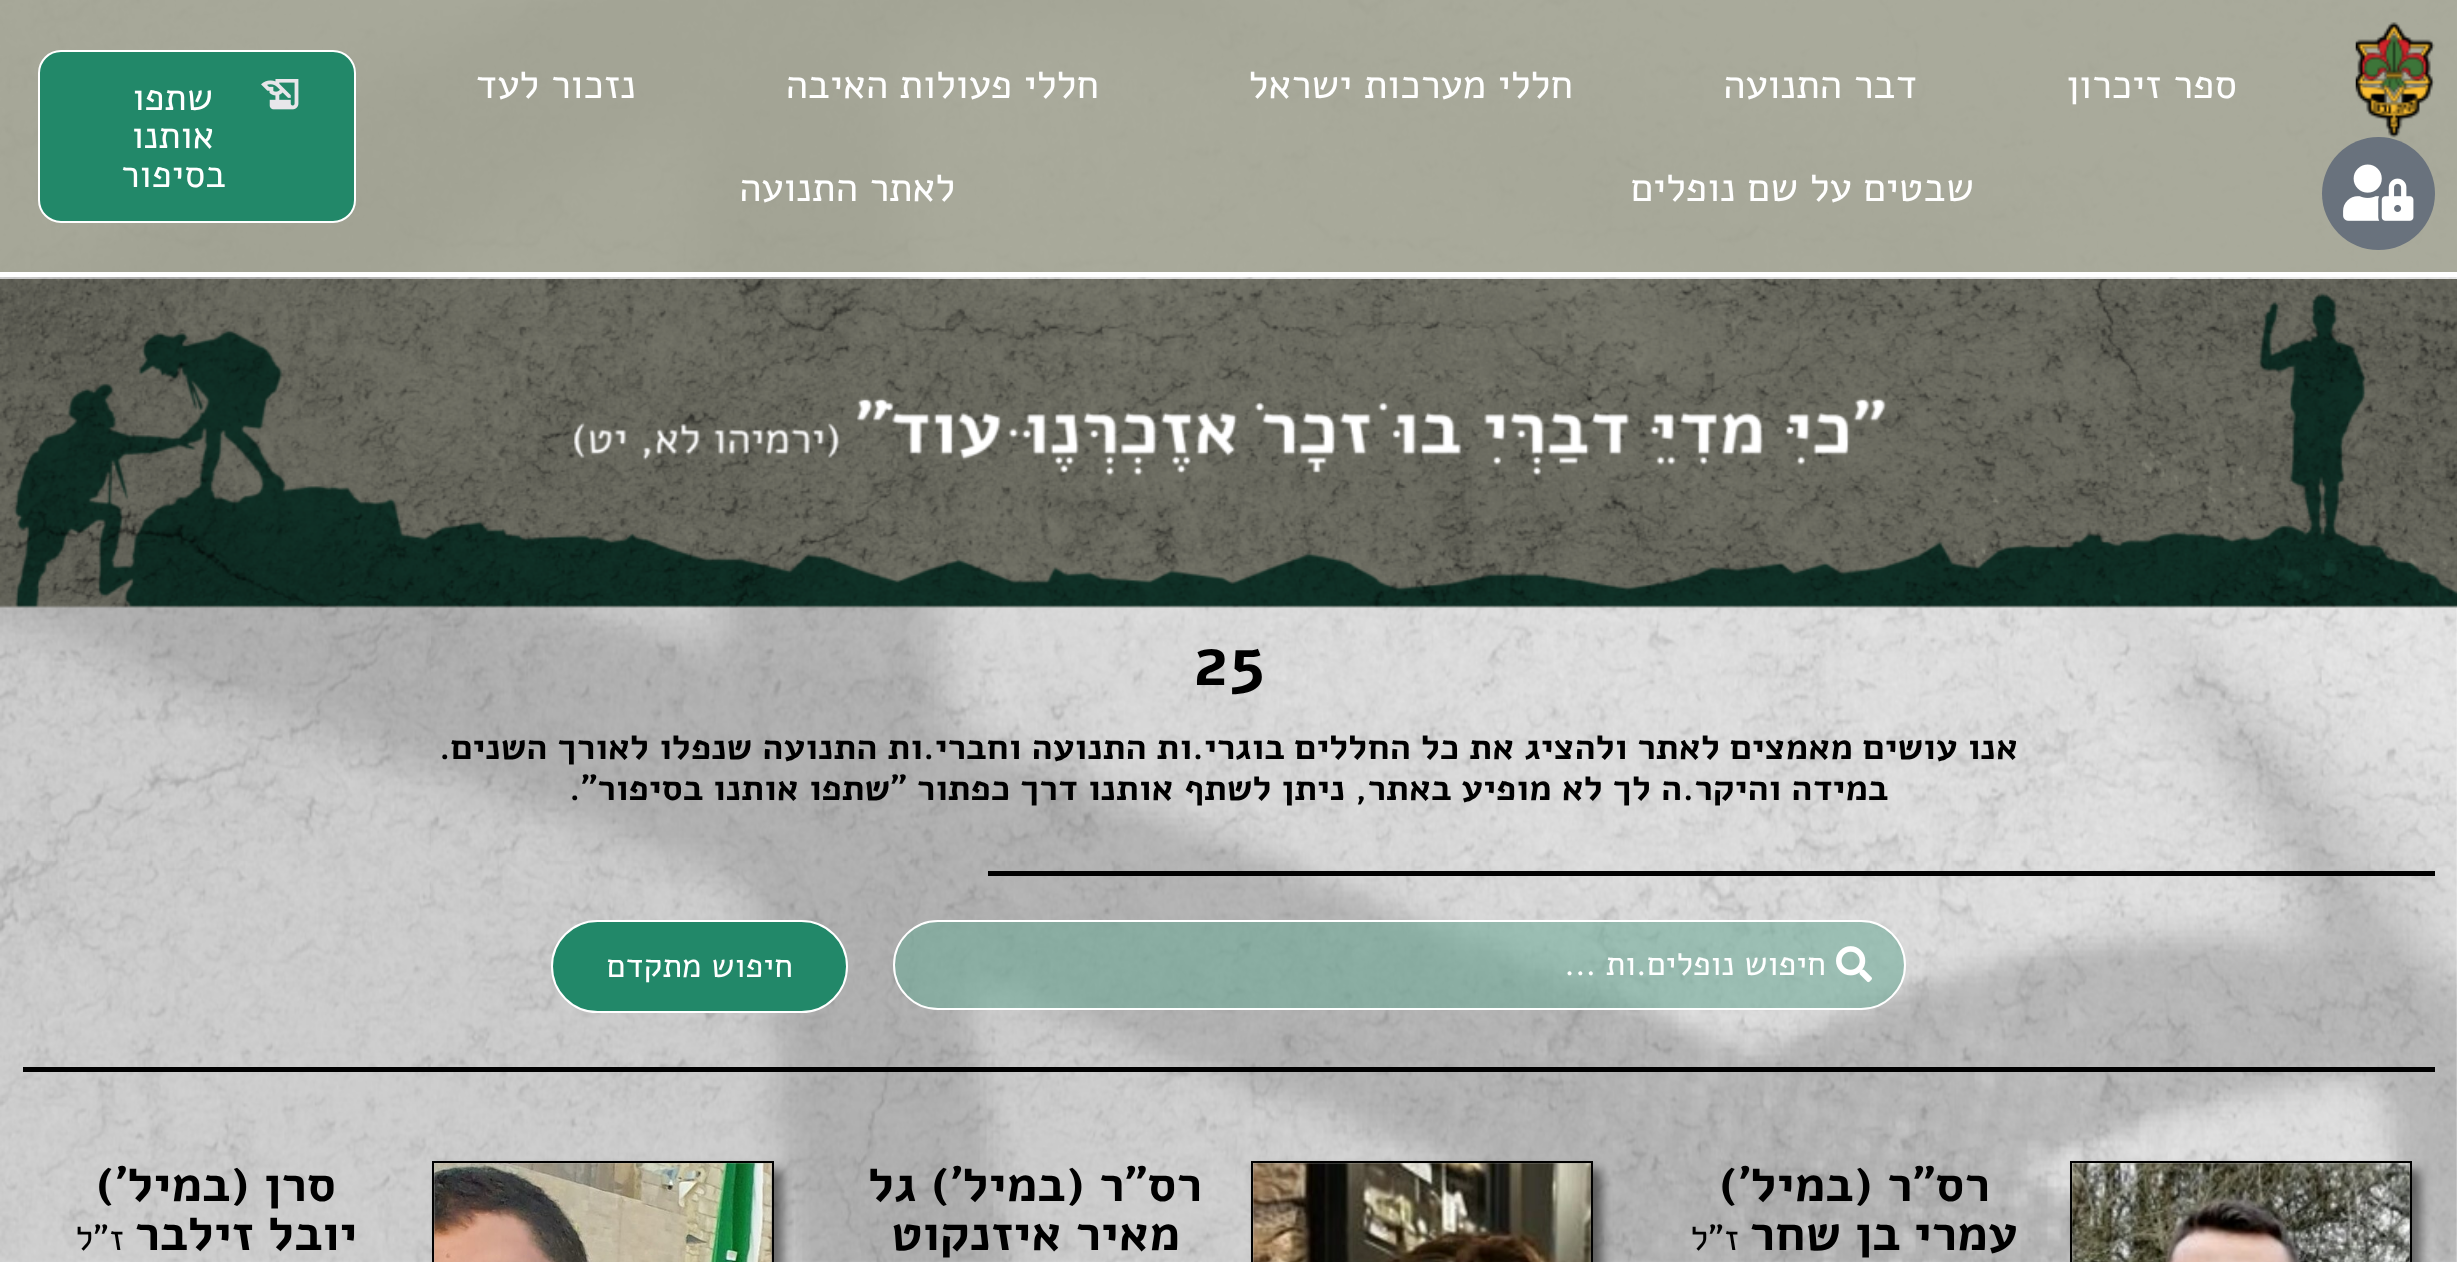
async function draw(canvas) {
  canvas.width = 2457;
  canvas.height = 1262;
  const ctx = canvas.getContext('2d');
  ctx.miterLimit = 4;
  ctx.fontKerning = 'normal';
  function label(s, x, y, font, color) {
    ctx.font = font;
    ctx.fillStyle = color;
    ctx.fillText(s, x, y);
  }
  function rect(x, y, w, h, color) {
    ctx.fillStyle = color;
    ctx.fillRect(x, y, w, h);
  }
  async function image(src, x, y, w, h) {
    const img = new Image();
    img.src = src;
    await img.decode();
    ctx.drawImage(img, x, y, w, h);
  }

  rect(0, 0, 2457, 1262, '#fff');
  await image('assets/img1.png', 0, 0, 2457, 1262);
  rect(0, 0, 2457, 272, '#a0a190de');
  rect(0, 272, 2457, 5, '#fff');
  await image('assets/img2.png', 2355, 22, 80, 116);
  ctx.fillStyle = '#69727d';
  ctx.beginPath();
  ctx.arc(2378.5, 193.5, 56.5, 0, 2 * Math.PI);
  ctx.fill();
  await image('assets/img3.png', 2343, 164, 71, 57);
  ctx.direction = 'rtl';
  label('ספר זיכרון', 2237, 98, '40.5px Alef', '#fff');
  label('דבר התנועה', 1917, 98, '40.5px Alef', '#fff');
  label('חללי מערכות ישראל', 1573, 98, '40.5px Alef', '#fff');
  label('חללי פעולות האיבה', 1099, 98, '40.5px Alef', '#fff');
  label('נזכור לעד', 636, 98, '40.5px Alef', '#fff');
  label('שבטים על שם נופלים', 1974, 201, '40.5px Alef', '#fff');
  label('לאתר התנועה', 955, 201, '40.5px Alef', '#fff');
  ctx.fillStyle = '#228869';
  ctx.beginPath();
  ctx.roundRect(39, 51, 316, 171, 22);
  ctx.fill();
  ctx.strokeStyle = '#fff';
  ctx.lineWidth = 2;
  ctx.stroke();
  await image('assets/img4.png', 261, 79, 38, 31);
  label('שתפו', 213, 110, '38px Alef', '#fff');
  label('אותנו', 214, 148, '38px Alef', '#fff');
  label('בסיפור', 226, 187, '38px Alef', '#fff');
  await image('assets/img5.png', 0, 279, 2457, 329);
  ctx.direction = 'ltr';
  label('25', 1193, 685, 'bold 68px Alef', '#000');
  ctx.direction = 'rtl';
  label('אנו עושים מאמצים לאתר ולהציג את כל החללים בוגרי.ות התנועה וחברי.ות התנועה שנפלו לאורך השנים.', 2018, 759, 'bold 36px Alef', '#000');
  label('במידה והיקר.ה לך לא מופיע באתר, ניתן לשתף אותנו דרך כפתור ״שתפו אותנו בסיפור״.', 1888, 800, 'bold 36px Alef', '#000');
  rect(988, 871, 1447, 5, '#000');
  ctx.fillStyle = '#6ba99691';
  ctx.beginPath();
  ctx.roundRect(894, 921, 1011, 88, 44);
  ctx.fill();
  ctx.stroke();
  await image('assets/img6.png', 1836, 946, 36, 37);
  label('חיפוש נופלים.ות ...', 1826, 975, '33.75px Alef', '#fff');
  ctx.fillStyle = '#228869';
  ctx.beginPath();
  ctx.roundRect(552, 921, 295, 91, 45.5);
  ctx.fill();
  ctx.stroke();
  label('חיפוש מתקדם', 793, 977, '33.75px Alef', '#fff');
  rect(23, 1067, 2412, 5, '#000');
  ctx.fillStyle = '#00000080';
  ctx.filter = 'blur(5.5px)';
  ctx.beginPath();
  ctx.rect(2079, 1170, 342, 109);
  ctx.fill();
  ctx.filter = 'none';
  ctx.strokeStyle = '#000';
  ctx.strokeRect(2071, 1162, 340, 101);
  await image('assets/img7.png', 2072, 1163, 338, 99);
  label('רס"ר (במיל\')', 1990, 1201, 'bold 49.5px Alef', '#000');
  label('עמרי בן שחר', 2018, 1250, 'bold 49.5px Alef', '#000');
  label('ז"ל', 1739, 1250, '36px Alef', '#000');
  ctx.fillStyle = '#00000080';
  ctx.filter = 'blur(5.5px)';
  ctx.beginPath();
  ctx.rect(1260, 1170, 342, 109);
  ctx.fill();
  ctx.filter = 'none';
  ctx.strokeRect(1252, 1162, 340, 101);
  await image('assets/img8.png', 1253, 1163, 338, 99);
  label('רס"ר (במיל\') גל', 1202, 1201, 'bold 49.5px Alef', '#000');
  label('מאיר איזנקוט', 1180, 1250, 'bold 49.5px Alef', '#000');
  ctx.fillStyle = '#00000080';
  ctx.filter = 'blur(5.5px)';
  ctx.beginPath();
  ctx.rect(441, 1170, 342, 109);
  ctx.fill();
  ctx.filter = 'none';
  ctx.strokeRect(433, 1162, 340, 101);
  await image('assets/img9.png', 434, 1163, 338, 99);
  label('סרן (במיל\')', 336, 1201, 'bold 49.5px Alef', '#000');
  label('יובל זילבר', 357, 1250, 'bold 49.5px Alef', '#000');
  label('ז"ל', 124, 1250, '36px Alef', '#000');
}

draw(document.querySelector('canvas'));
